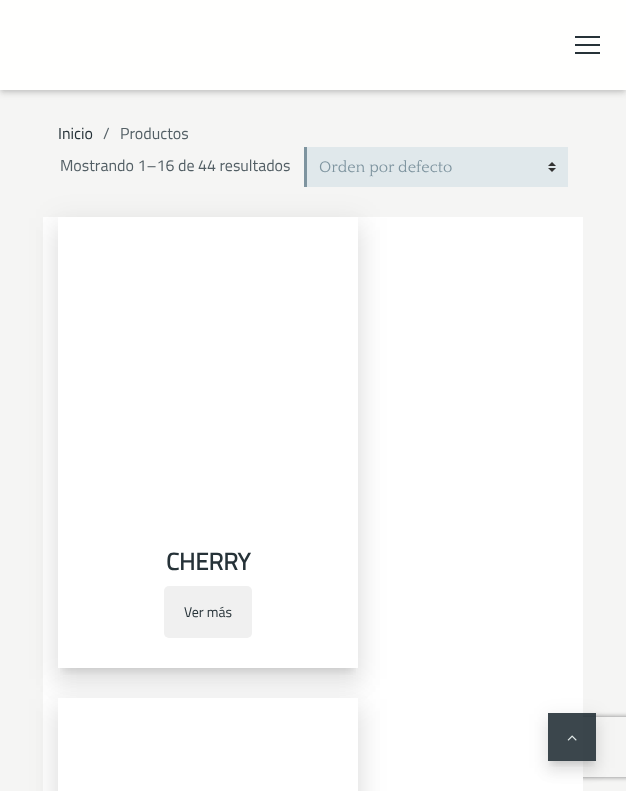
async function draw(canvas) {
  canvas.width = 626;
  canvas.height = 791;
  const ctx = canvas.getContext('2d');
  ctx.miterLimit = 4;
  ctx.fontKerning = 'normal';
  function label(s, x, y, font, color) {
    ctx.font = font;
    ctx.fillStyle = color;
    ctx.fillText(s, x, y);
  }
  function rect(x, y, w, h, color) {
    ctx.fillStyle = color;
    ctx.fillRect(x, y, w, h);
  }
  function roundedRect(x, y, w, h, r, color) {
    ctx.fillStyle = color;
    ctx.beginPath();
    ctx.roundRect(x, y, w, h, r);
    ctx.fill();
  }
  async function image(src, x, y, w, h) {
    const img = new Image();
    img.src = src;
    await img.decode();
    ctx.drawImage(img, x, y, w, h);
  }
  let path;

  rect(0, 0, 626, 791, '#f5f5f4');
  ctx.fillStyle = '#0000001a';
  ctx.filter = 'blur(5px)';
  ctx.beginPath();
  ctx.rect(0, 1, 626, 90);
  ctx.fill();
  ctx.filter = 'none';
  ctx.fillStyle = '#0000000d';
  ctx.filter = 'blur(2.5px)';
  ctx.beginPath();
  ctx.rect(0, 4, 626, 90);
  ctx.fill();
  ctx.filter = 'none';
  ctx.fillStyle = '#0000001a';
  ctx.filter = 'blur(2px)';
  ctx.beginPath();
  ctx.rect(1, 3, 624, 88);
  ctx.fill();
  ctx.filter = 'none';
  rect(0, 0, 626, 90, '#fffffe');
  rect(575, 44, 25, 2, '#263238');
  rect(575, 36, 25, 2, '#263238');
  rect(575, 52, 25, 2, '#263238');
  label('Inicio', 58, 139, '16px Titillium Web', '#263238');
  label('/', 103, 139, '16px Titillium Web', '#535f65');
  label('Productos', 120, 139, '16px Titillium Web', '#535f65');
  label('Mostrando 1–16 de 44 resultados', 60, 171, '16px Titillium Web', '#535f65');
  rect(307, 147, 261, 40, '#e0e8eb');
  await image('assets/img1.png', 548, 162, 8, 10);
  rect(304, 147, 3, 40, '#7e949f');
  label('Orden por defecto', 319, 172, '16px Quattrocento', '#7e949f');
  ctx.save();
  path = new Path2D('M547 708H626V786H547ZM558 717H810C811 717 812 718 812 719V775C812 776 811 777 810 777H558C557 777 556 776 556 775V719C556 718 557 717 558 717Z');
  ctx.clip(path, 'evenodd');
  ctx.fillStyle = '#808080';
  ctx.filter = 'blur(2.5px)';
  ctx.beginPath();
  ctx.roundRect(556, 717, 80, 60, 2);
  ctx.fill();
  ctx.filter = 'none';
  ctx.restore();
  rect(43, 217, 540, 574, '#fff');
  ctx.save();
  path = new Path2D('M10 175H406V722H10ZM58 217H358V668H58Z');
  ctx.clip(path, 'evenodd');
  ctx.fillStyle = '#0000000f';
  ctx.filter = 'blur(14px)';
  ctx.beginPath();
  ctx.rect(53, 218, 310, 461);
  ctx.fill();
  ctx.filter = 'none';
  ctx.restore();
  ctx.save();
  path = new Path2D('M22 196H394V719H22ZM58 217H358V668H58Z');
  ctx.clip(path, 'evenodd');
  ctx.fillStyle = '#00000012';
  ctx.filter = 'blur(11px)';
  ctx.beginPath();
  ctx.rect(56, 230, 304, 455);
  ctx.fill();
  ctx.filter = 'none';
  ctx.restore();
  ctx.save();
  ctx.beginPath();
  ctx.rect(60, 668, 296, 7);
  ctx.clip();
  ctx.fillStyle = '#0000001a';
  ctx.filter = 'blur(4.5px)';
  ctx.beginPath();
  ctx.rect(63, 230, 290, 441);
  ctx.fill();
  ctx.filter = 'none';
  ctx.restore();
  label('CHERRY', 166, 570, 'bold 24px Titillium Web', '#263238');
  roundedRect(164, 586, 88, 52, 5, '#f0f0f0');
  label('Ver más', 184, 617, '14px Titillium Web', '#263238');
  ctx.fillStyle = '#0000000f';
  ctx.filter = 'blur(14px)';
  ctx.beginPath();
  ctx.rect(53, 699, 310, 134);
  ctx.fill();
  ctx.filter = 'none';
  ctx.fillStyle = '#00000012';
  ctx.filter = 'blur(11px)';
  ctx.beginPath();
  ctx.rect(56, 711, 304, 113);
  ctx.fill();
  ctx.filter = 'none';
  rect(58, 698, 300, 93, '#fff');
  ctx.save();
  path = new Path2D('M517 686H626V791H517ZM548 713H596V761H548Z');
  ctx.clip(path, 'evenodd');
  ctx.fillStyle = '#0000000f';
  ctx.filter = 'blur(9px)';
  ctx.beginPath();
  ctx.rect(545, 714, 54, 54);
  ctx.fill();
  ctx.filter = 'none';
  ctx.restore();
  ctx.save();
  path = new Path2D('M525 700H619V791H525ZM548 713H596V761H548Z');
  ctx.clip(path, 'evenodd');
  ctx.fillStyle = '#00000012';
  ctx.filter = 'blur(7px)';
  ctx.beginPath();
  ctx.rect(547, 722, 50, 50);
  ctx.fill();
  ctx.filter = 'none';
  ctx.restore();
  ctx.save();
  ctx.beginPath();
  ctx.rect(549, 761, 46, 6);
  ctx.clip();
  ctx.fillStyle = '#0000001a';
  ctx.filter = 'blur(3px)';
  ctx.beginPath();
  ctx.rect(551, 722, 42, 42);
  ctx.fill();
  ctx.filter = 'none';
  ctx.restore();
  rect(548, 713, 48, 48, '#263238e6');
  await image('assets/img2.png', 567, 735, 10, 6);
}

draw(document.querySelector('canvas'));
